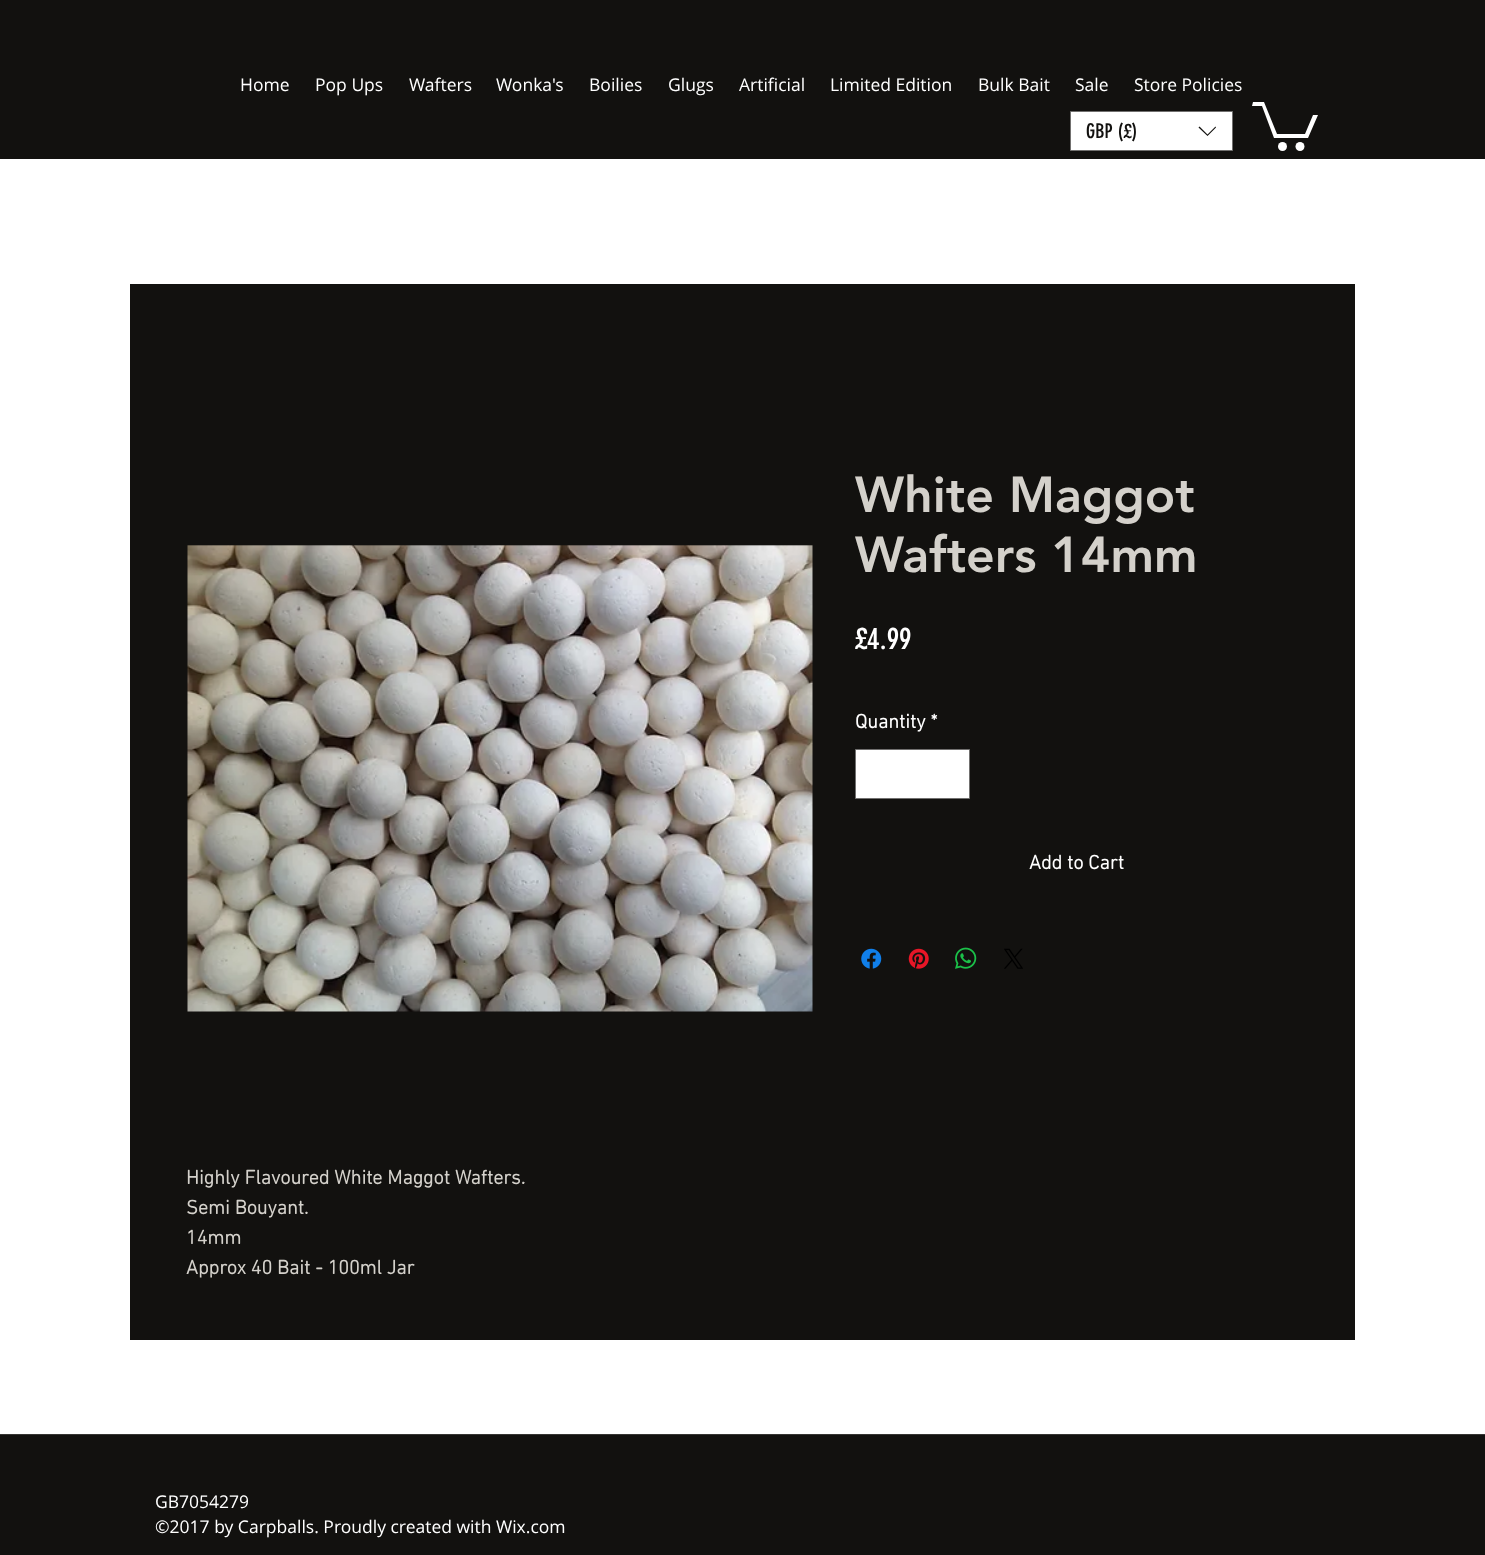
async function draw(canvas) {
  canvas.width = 1485;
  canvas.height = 1555;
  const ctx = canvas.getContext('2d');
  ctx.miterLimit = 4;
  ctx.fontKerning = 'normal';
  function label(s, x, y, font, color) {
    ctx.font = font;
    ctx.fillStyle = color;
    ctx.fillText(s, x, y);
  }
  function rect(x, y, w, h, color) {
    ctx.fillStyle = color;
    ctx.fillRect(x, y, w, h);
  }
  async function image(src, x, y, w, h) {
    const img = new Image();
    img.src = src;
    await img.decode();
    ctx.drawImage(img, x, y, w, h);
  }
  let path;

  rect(0, 0, 1485, 1555, '#fff');
  rect(0, 0, 1485, 159, '#12110f');
  label('Home', 240, 91, '17.5px Open Sans', '#fff');
  label('Pop Ups', 315, 91, '17.5px Open Sans', '#fff');
  label('Wafters', 409, 91, '17.5px Open Sans', '#fff');
  label('Wonka\'s', 496, 91, '17.5px Open Sans', '#fff');
  label('Boilies', 589, 91, '17.5px Open Sans', '#fff');
  label('Glugs', 668, 91, '17.5px Open Sans', '#fff');
  label('Artificial', 739, 91, '17.5px Open Sans', '#fff');
  label('Limited Edition', 830, 91, '17.5px Open Sans', '#fff');
  label('Bulk Bait', 978, 91, '17.5px Open Sans', '#fff');
  label('Sale', 1075, 91, '17.5px Open Sans', '#fff');
  label('Store Policies', 1134, 91, '17.5px Open Sans', '#fff');
  ctx.beginPath();
  ctx.rect(1070.5, 111.5, 162, 39);
  ctx.fill();
  ctx.strokeStyle = '#71706f';
  ctx.stroke();
  label('GBP (£)', 1086, 138, '20px "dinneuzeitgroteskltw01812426"', '#12110f');
  path = new Path2D('M1215.5 126.5L1216 127.5L1207.5 136L1198.5 127.5L1199.5 126.5L1207.5 134.5Z');
  ctx.fill(path, 'evenodd');
  ctx.fillStyle = '#fff';
  path = new Path2D('M1318 115L1308 138H1274L1262 106H1252L1253 102H1264L1277 134H1305L1313 115');
  ctx.fill(path);
  ctx.beginPath();
  ctx.arc(1300, 146.5, 4.5, 0, 2 * Math.PI);
  ctx.fill();
  ctx.beginPath();
  ctx.arc(1282.5, 146.5, 4.5, 0, 2 * Math.PI);
  ctx.fill();
  rect(130, 284, 1225, 1056, '#12110f');
  label('White Maggot', 855, 512, '900 50px "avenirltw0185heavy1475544"', '#d4d1cb');
  label('Wafters 14mm', 855, 572, '900 50px "avenirltw0185heavy1475544"', '#d4d1cb');
  label('£4.99', 855, 649, '30px "dinneuzeitgroteskltw01812426"', '#fff');
  label('Quantity *', 855, 728, 'bold 20px "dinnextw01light"', '#fff');
  ctx.beginPath();
  ctx.rect(855.5, 749.5, 114, 49);
  ctx.fill();
  ctx.stroke();
  label('Add to Cart', 1029, 869, 'bold 20px "dinnextw01light"', '#fff');
  await image('assets/img1.png', 861, 948, 21, 21);
  await image('assets/img2.png', 908, 948, 21, 21);
  await image('assets/img3.png', 955, 947, 22, 22);
  await image('assets/img4.png', 1004, 948, 19, 21);
  await image('assets/img5.png', 187, 545, 626, 467);
  label('Highly Flavoured White Maggot Wafters.', 186, 1184, 'bold 20px "dinnextw01light"', '#d4d1cb');
  label('Semi Bouyant.', 186, 1214, 'bold 20px "dinnextw01light"', '#d4d1cb');
  label('14mm', 186, 1244, 'bold 20px "dinnextw01light"', '#d4d1cb');
  label('Approx 40 Bait - 100ml Jar', 186, 1274, 'bold 20px "dinnextw01light"', '#d4d1cb');
  rect(0, 1435, 1485, 120, '#12110f');
  rect(0, 1434, 1485, 1, '#363533');
  label('GB7054279', 155, 1508, '17.5px Open Sans', '#fff');
  label('©2017 by Carpballs. Proudly created with Wix.com', 155, 1533, '17.5px Open Sans', '#fff');
}

draw(document.querySelector('canvas'));
